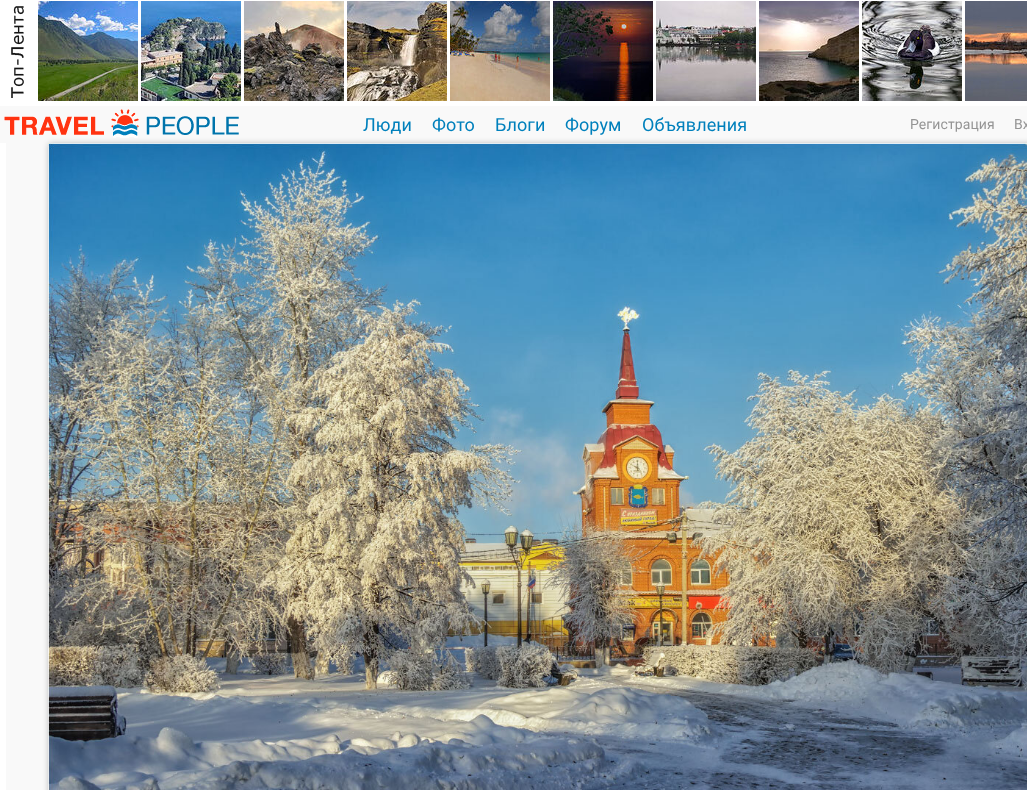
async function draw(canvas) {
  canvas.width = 1027;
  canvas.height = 790;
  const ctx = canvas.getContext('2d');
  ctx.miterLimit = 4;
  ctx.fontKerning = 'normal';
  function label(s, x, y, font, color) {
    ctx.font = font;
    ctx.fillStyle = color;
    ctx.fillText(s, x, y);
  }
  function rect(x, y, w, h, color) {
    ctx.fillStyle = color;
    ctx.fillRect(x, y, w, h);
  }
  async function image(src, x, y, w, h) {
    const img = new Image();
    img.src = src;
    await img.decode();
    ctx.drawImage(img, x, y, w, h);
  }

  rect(0, 0, 1027, 790, '#fff');
  await image('assets/img1.png', 11, 6, 13, 92);
  await image('assets/img2.png', 38, 1, 100, 100);
  await image('assets/img3.png', 141, 1, 100, 100);
  await image('assets/img4.png', 244, 1, 100, 100);
  await image('assets/img5.png', 347, 1, 100, 100);
  await image('assets/img6.png', 450, 1, 100, 100);
  await image('assets/img7.png', 553, 1, 100, 100);
  await image('assets/img8.png', 656, 1, 100, 100);
  await image('assets/img9.png', 759, 1, 100, 100);
  await image('assets/img10.png', 862, 1, 100, 100);
  await image('assets/img11.png', 965, 1, 62, 100);
  rect(0, 106, 1027, 37, '#f9f9f9');
  await image('assets/img12.png', 4, 109, 235, 29);
  ctx.letterSpacing = '0.1px';
  label('Люди', 363, 131, '18px Roboto', '#0080bc');
  label('Фото', 432, 131, '18px Roboto', '#0080bc');
  label('Блоги', 495, 131, '18px Roboto', '#0080bc');
  rect(6, 143, 42, 647, '#f9f9f9');
  ctx.fillStyle = '#0000004d';
  ctx.filter = 'blur(3px)';
  ctx.beginPath();
  ctx.rect(49, 144, 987, 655);
  ctx.fill();
  ctx.filter = 'none';
  label('Форум', 565, 131, '18px Roboto', '#0080bc');
  label('Объявления', 642, 131, '18px Roboto', '#0080bc');
  label('Регистрация', 910, 129, '14px Roboto', '#959595');
  label('Вх', 1014, 129, '14px Roboto', '#959595');
  await image('assets/img13.png', 48, 143, 979, 647);
}

draw(document.querySelector('canvas'));
